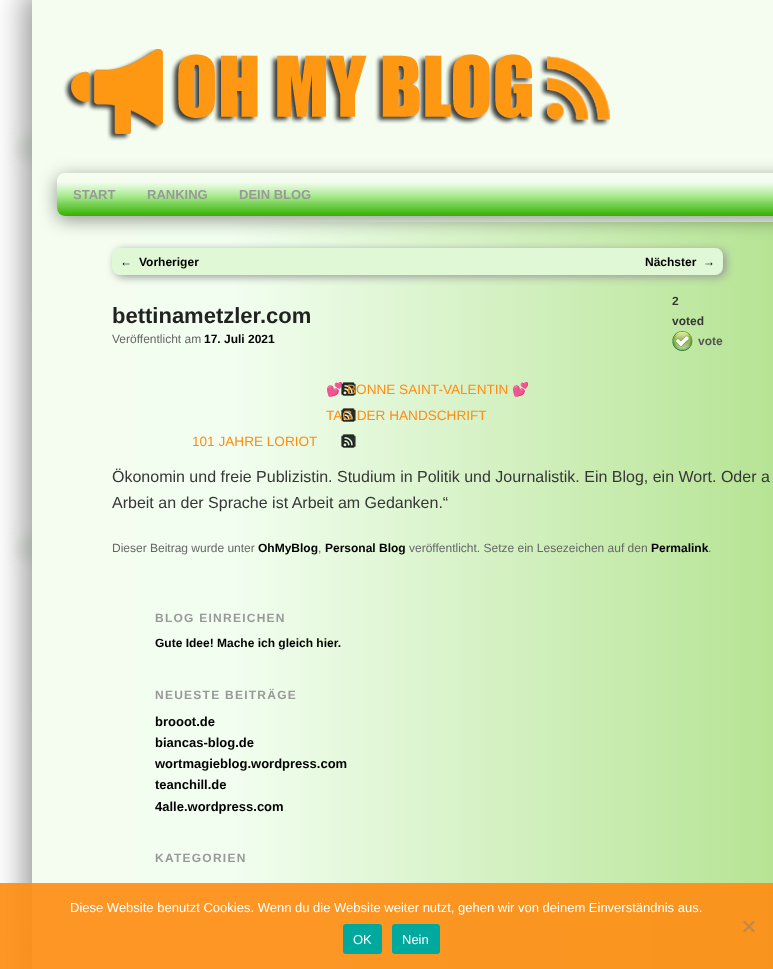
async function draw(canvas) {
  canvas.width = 773;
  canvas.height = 969;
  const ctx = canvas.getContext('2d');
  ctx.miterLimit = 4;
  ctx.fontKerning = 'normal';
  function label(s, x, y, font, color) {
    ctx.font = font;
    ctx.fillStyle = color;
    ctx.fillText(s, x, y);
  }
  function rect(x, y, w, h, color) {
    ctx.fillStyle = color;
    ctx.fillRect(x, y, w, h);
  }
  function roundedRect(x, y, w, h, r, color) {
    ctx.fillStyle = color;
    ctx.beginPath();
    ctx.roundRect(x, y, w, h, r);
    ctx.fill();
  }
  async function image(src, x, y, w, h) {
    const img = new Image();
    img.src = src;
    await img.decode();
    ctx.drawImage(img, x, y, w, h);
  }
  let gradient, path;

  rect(0, 0, 773, 969, '#fff');
  await image('assets/img1.png', 0, 0, 32, 969);
  ctx.fillStyle = '#999';
  ctx.filter = 'blur(15px)';
  ctx.beginPath();
  ctx.rect(24, -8, 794, 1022);
  ctx.fill();
  ctx.filter = 'none';
  rect(32, 0, 741, 969, '#f4fdf0');
  await image('assets/img2.png', 63, 49, 547, 92);
  gradient = ctx.createLinearGradient(135, 628, 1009, 628);
  gradient.addColorStop(0.11, '#f2fef0');
  gradient.addColorStop(0.75, '#b4e391');
  gradient.addColorStop(1, '#b4e391');
  ctx.fillStyle = gradient;
  ctx.beginPath();
  ctx.roundRect(135, 222, 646, 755, 8);
  ctx.fill();
  ctx.save();
  path = new Path2D('M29 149H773V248H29ZM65 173H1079C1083.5 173 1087 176.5 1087 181V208C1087 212.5 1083.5 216 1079 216H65C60.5 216 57 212.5 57 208V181C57 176.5 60.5 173 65 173Z');
  ctx.clip(path, 'evenodd');
  ctx.fillStyle = '#00000066';
  ctx.filter = 'blur(9px)';
  ctx.beginPath();
  ctx.roundRect(57, 177, 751, 43, 8);
  ctx.fill();
  ctx.filter = 'none';
  ctx.restore();
  gradient = ctx.createLinearGradient(572, 173, 572, 216);
  gradient.addColorStop(0.21, '#3cd40000');
  gradient.addColorStop(0.3, '#3cd4001c');
  gradient.addColorStop(0.56, '#3acc0070');
  gradient.addColorStop(0.67, '#35bc0094');
  gradient.addColorStop(0.83, '#34b600c7');
  gradient.addColorStop(1, '#32b000');
  ctx.fillStyle = gradient;
  ctx.beginPath();
  ctx.roundRect(57, 173, 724, 43, 8);
  ctx.fill();
  label('START', 73, 199, 'bold 13px Liberation Sans', '#999');
  label('RANKING', 147, 199, 'bold 13px Liberation Sans', '#999');
  label('DEIN BLOG', 239, 199, 'bold 13px Liberation Sans', '#999');
  ctx.filter = 'blur(4px)';
  ctx.beginPath();
  ctx.roundRect(115, 250, 611, 27, 8);
  ctx.fill();
  ctx.filter = 'none';
  roundedRect(112, 248, 611, 27, 8, '#e1f8d7');
  label('←', 120, 266, '12px Liberation Sans', '#000');
  label('Vorheriger', 139, 266, 'bold 12px Liberation Sans', '#000');
  label('Nächster', 645, 266, 'bold 12px Liberation Sans', '#000');
  label('→', 703, 266, '12px Liberation Sans', '#000');
  label('2', 672, 305, 'bold 12px Liberation Sans', '#373737');
  label('voted', 672, 325, 'bold 12px Liberation Sans', '#373737');
  await image('assets/img3.png', 672, 331, 21, 20);
  label('vote', 698, 345, 'bold 12px Liberation Sans', '#555');
  label('bettinametzler.com', 112, 323, 'bold 22px Liberation Sans', '#222');
  label('Veröffentlicht am', 112, 343, '12px Liberation Sans', '#666');
  label('17. Juli 2021', 204, 343, 'bold 12px Liberation Sans', '#000');
  await image('assets/img4.png', 341, 382, 15, 14);
  label('💕', 326, 394, '13.6px Noto Color Emoji', '#fe8d13');
  label('BONNE SAINT-VALENTIN', 347, 394, '13.6px Liberation Sans', '#fe8d13');
  label('💕', 512, 394, '13.6px Noto Color Emoji', '#fe8d13');
  await image('assets/img4.png', 341, 408, 15, 14);
  label('TAG DER HANDSCHRIFT', 326, 420, '13.6px Liberation Sans', '#fe8d13');
  await image('assets/img4.png', 341, 434, 15, 14);
  label('101 JAHRE LORIOT', 192, 446, '13.6px Liberation Sans', '#fe8d13');
  label('Ökonomin und freie Publizistin. Studium in Politik und Journalistik. Ein Blog, ein Wort. Oder a', 112, 482, '16px Liberation Sans', '#373737');
  label('Arbeit an der Sprache ist Arbeit am Gedanken.“', 112, 508, '16px Liberation Sans', '#373737');
  label('Dieser Beitrag wurde unter', 112, 552, '12px Liberation Sans', '#666');
  label('OhMyBlog', 258, 552, 'bold 12px Liberation Sans', '#000');
  label(',', 318, 552, '12px Liberation Sans', '#666');
  label('Personal Blog', 325, 552, 'bold 12px Liberation Sans', '#000');
  label('veröffentlicht. Setze ein Lesezeichen auf den', 409, 552, '12px Liberation Sans', '#666');
  label('Permalink', 651, 552, 'bold 12px Liberation Sans', '#000');
  label('.', 708, 552, '12px Liberation Sans', '#666');
  ctx.letterSpacing = '1.25px';
  label('BLOG EINREICHEN', 155, 622, 'bold 12px Liberation Sans', '#999');
  ctx.letterSpacing = '0px';
  label('Gute Idee! Mache ich gleich hier.', 155, 647, 'bold 12px Liberation Sans', '#000');
  ctx.letterSpacing = '1.25px';
  label('NEUESTE BEITRÄGE', 155, 699, 'bold 12px Liberation Sans', '#999');
  ctx.letterSpacing = '0px';
  label('brooot.de', 155, 726, 'bold 13px Liberation Sans', '#000');
  label('biancas-blog.de', 155, 747, 'bold 13px Liberation Sans', '#000');
  label('wortmagieblog.wordpress.com', 155, 768, 'bold 13px Liberation Sans', '#000');
  label('teanchill.de', 155, 789, 'bold 13px Liberation Sans', '#000');
  label('4alle.wordpress.com', 155, 811, 'bold 13px Liberation Sans', '#000');
  ctx.letterSpacing = '1.25px';
  label('KATEGORIEN', 155, 862, 'bold 12px Liberation Sans', '#999');
  rect(0, 883, 773, 86, '#fe8d13eb');
  ctx.letterSpacing = '0px';
  label('Diese Website benutzt Cookies. Wenn du die Website weiter nutzt, gehen wir von deinem Einverständnis aus.', 70, 912, '13px Liberation Sans', '#fff');
  ctx.fillStyle = '#bc8a4f';
  path = new Path2D('M753.5 920.5L755 922L744.5 932.5L743 931Z');
  ctx.fill(path);
  path = new Path2D('M743 922L744.5 920.5L755 931L753.5 932.5Z');
  ctx.fill(path);
  roundedRect(343, 924, 39, 30, 3, '#00a99d');
  label('OK', 353, 944, '13px Liberation Sans', '#fff');
  roundedRect(392, 924, 48, 30, 3, '#00a99d');
  label('Nein', 402, 944, '13px Liberation Sans', '#fff');
}

draw(document.querySelector('canvas'));
